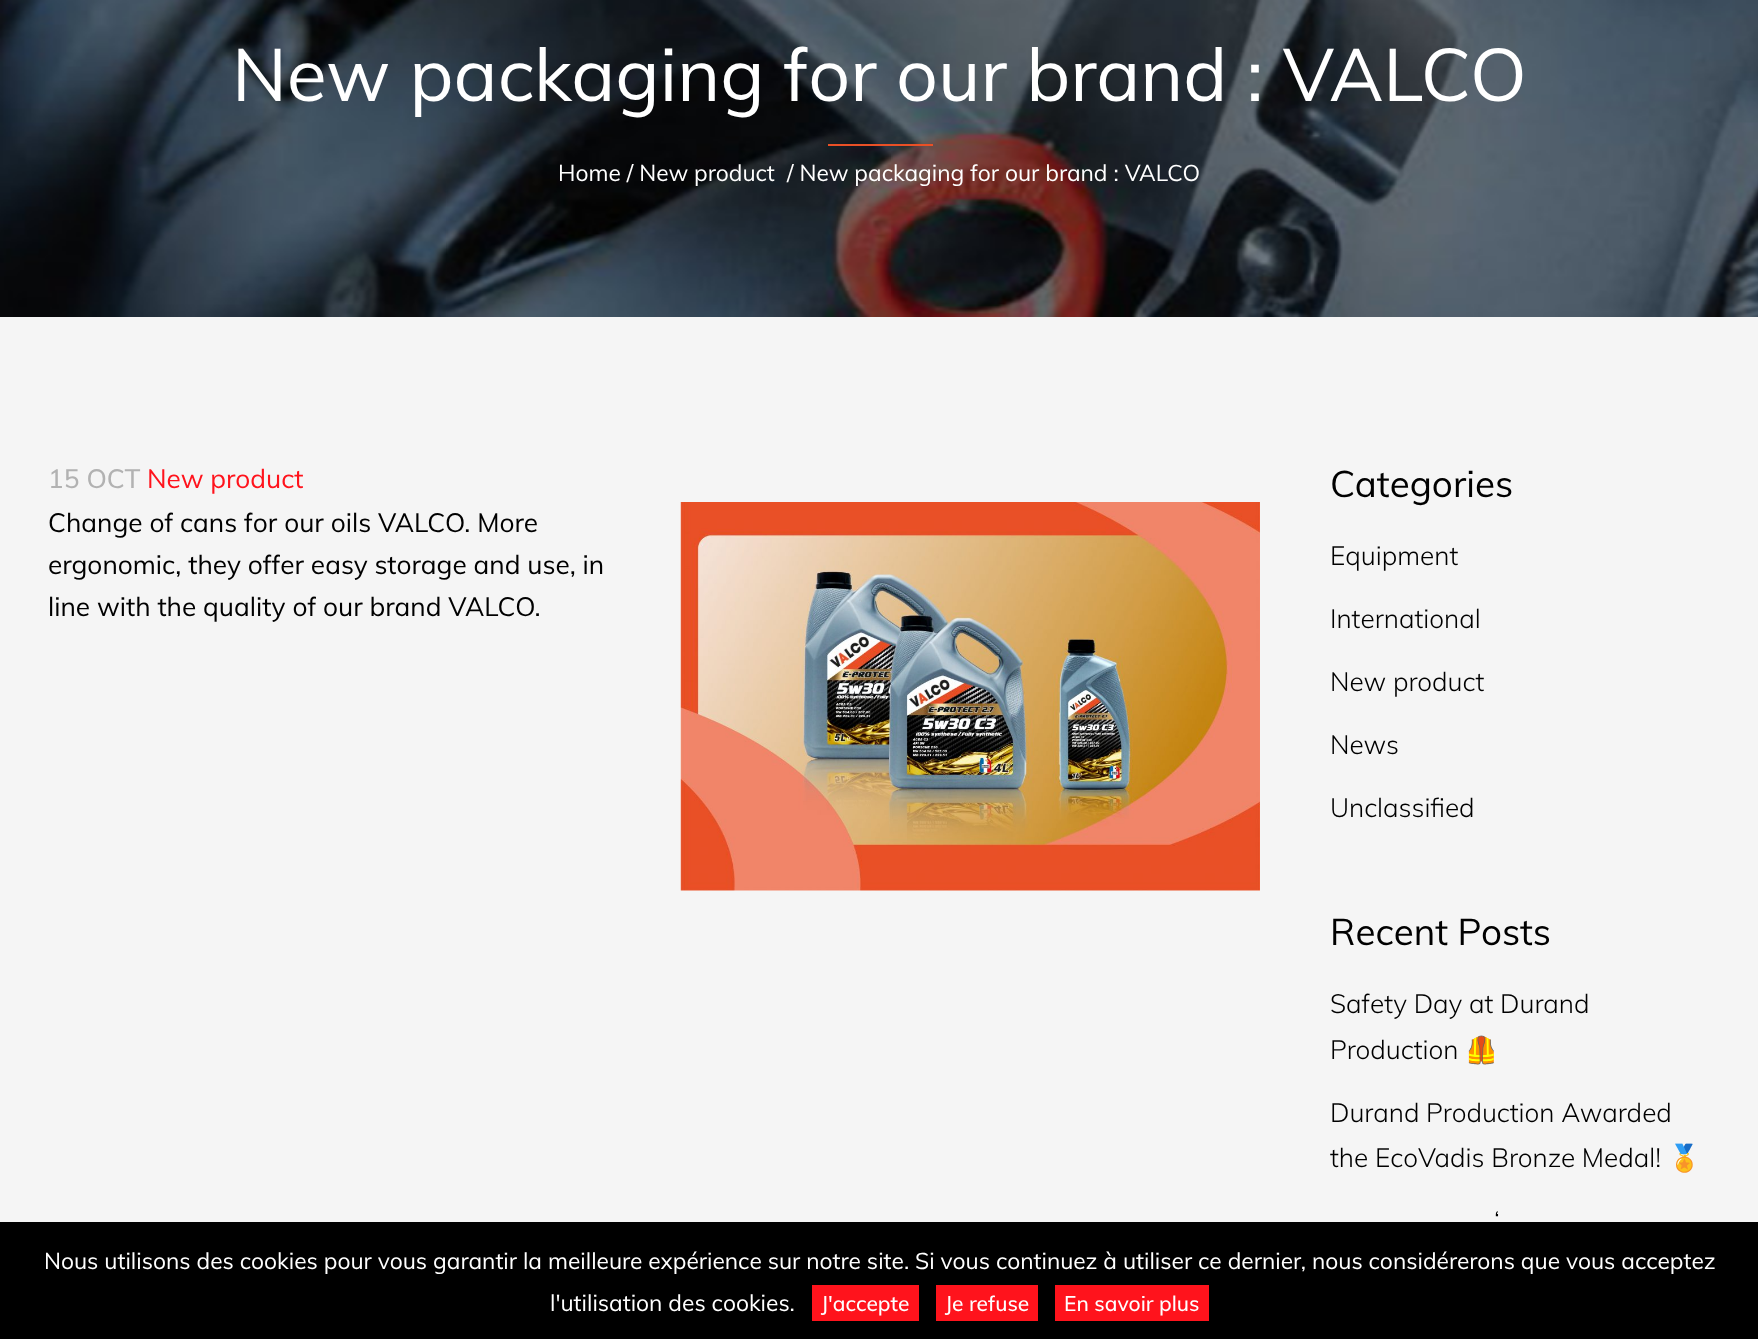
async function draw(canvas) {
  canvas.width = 1758;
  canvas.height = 1339;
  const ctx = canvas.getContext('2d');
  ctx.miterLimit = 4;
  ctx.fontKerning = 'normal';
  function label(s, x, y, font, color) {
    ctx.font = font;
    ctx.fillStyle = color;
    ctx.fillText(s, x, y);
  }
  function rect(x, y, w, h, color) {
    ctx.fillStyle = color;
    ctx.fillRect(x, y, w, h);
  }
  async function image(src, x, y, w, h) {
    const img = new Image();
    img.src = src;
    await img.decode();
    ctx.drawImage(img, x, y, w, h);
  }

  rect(0, 0, 1758, 1339, '#f5f5f5');
  await image('assets/img1.png', 0, 0, 1758, 317);
  label('New packaging for our brand : VALCO', 232, 101, '73.5px Muli', '#fff');
  rect(828, 144, 105, 2, '#ea5026');
  label('Home / New product', 558, 181, '22.75px Muli', '#fff');
  label('/ New packaging for our brand : VALCO', 787, 181, '22.75px Muli', '#fff');
  label('15 OCT', 48, 488, '500 26.25px Muli', '#b2b2b2');
  label('New product', 147, 488, '26.25px Muli', '#ff131c');
  label('Change of cans for our oils VALCO. More', 48, 532, '26.25px Muli', '#000');
  label('ergonomic, they offer easy storage and use, in', 48, 574, '26.25px Muli', '#000');
  label('line with the quality of our brand VALCO.', 48, 616, '26.25px Muli', '#000');
  await image('assets/img2.png', 680, 502, 580, 389);
  label('Categories', 1330, 497, '36.75px Muli', '#000');
  label('Equipment', 1330, 565, '300 26.25px Muli', '#000');
  label('International', 1330, 628, '300 26.25px Muli', '#000');
  label('New product', 1330, 691, '300 26.25px Muli', '#000');
  label('News', 1330, 754, '300 26.25px Muli', '#000');
  label('Unclassified', 1330, 817, '300 26.25px Muli', '#000');
  label('Recent Posts', 1330, 945, '36.75px Muli', '#000');
  label('Safety Day at Durand', 1330, 1013, '300 26.25px Muli', '#000');
  label('Production', 1330, 1059, '300 26.25px Muli', '#000');
  label('🦺', 1465, 1059, '26.25px Noto Color Emoji', '#000');
  label('Durand Production Awarded', 1330, 1122, '300 26.25px Muli', '#000');
  label('the EcoVadis Bronze Medal!', 1330, 1167, '300 26.25px Muli', '#000');
  label('🏅', 1668, 1167, '26.25px Noto Color Emoji', '#000');
  label('‘', 1494, 1230, '300 26.25px Muli', '#000');
  rect(0, 1222, 1758, 117, '#000');
  label('Nous utilisons des cookies pour vous garantir la meilleure expérience sur notre site. Si vous continuez à utiliser ce dernier, nous considérerons que vous acceptez', 44, 1269, '22.75px Muli', '#fff');
  label('l\'utilisation des cookies.', 550, 1311, '22.75px Muli', '#fff');
  rect(812, 1285, 107, 36, '#ff131c');
  label('J\'accepte', 821, 1311, '500 21px Muli', '#fff');
  rect(936, 1285, 102, 36, '#ff131c');
  label('Je refuse', 945, 1311, '500 21px Muli', '#fff');
  rect(1055, 1285, 154, 36, '#ff131c');
  label('En savoir plus', 1064, 1311, '500 21px Muli', '#fff');
}

draw(document.querySelector('canvas'));
